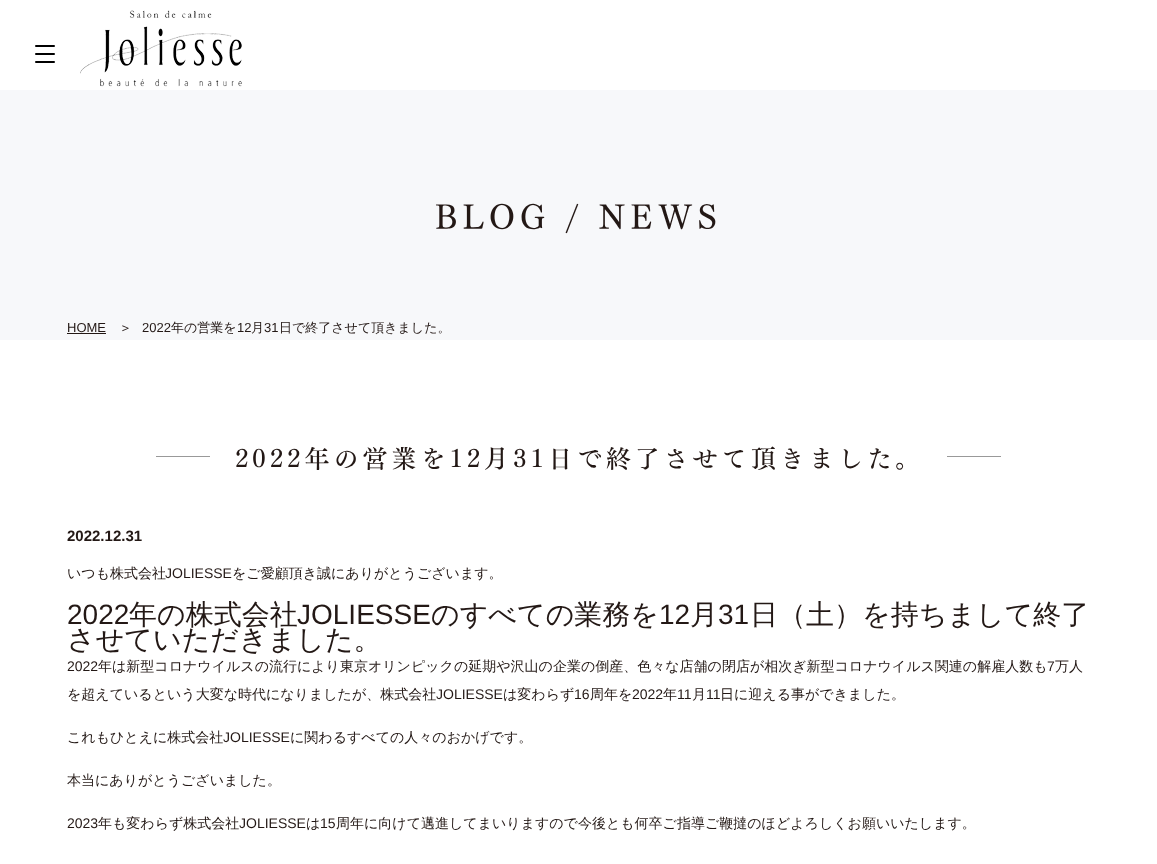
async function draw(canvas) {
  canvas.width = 1157;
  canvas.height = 864;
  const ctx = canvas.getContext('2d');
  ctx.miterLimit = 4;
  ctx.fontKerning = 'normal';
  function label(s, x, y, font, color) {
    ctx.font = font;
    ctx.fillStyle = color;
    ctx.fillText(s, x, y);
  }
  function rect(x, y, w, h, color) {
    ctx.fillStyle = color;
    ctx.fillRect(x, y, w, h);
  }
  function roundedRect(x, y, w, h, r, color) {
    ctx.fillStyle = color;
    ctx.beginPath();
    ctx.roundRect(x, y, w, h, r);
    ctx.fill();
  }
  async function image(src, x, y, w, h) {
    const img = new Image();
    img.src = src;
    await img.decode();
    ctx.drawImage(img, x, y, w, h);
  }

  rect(0, 0, 1157, 864, '#fff');
  roundedRect(35, 45, 20, 2, 1, '#000');
  roundedRect(35, 53, 20, 2, 1, '#000');
  roundedRect(35, 61, 20, 2, 1, '#000');
  await image('assets/img1.png', 80, 10, 162, 77);
  rect(0, 90, 1157, 250, '#f7f8fa');
  ctx.letterSpacing = '5px';
  label('BLOG / NEWS', 435, 230, '600 34px "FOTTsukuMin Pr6"', '#231815');
  ctx.letterSpacing = '0px';
  label('HOME', 67, 332, '13px Liberation Sans', '#231815');
  rect(67, 333, 39, 1, '#231815');
  label('＞', 119, 332, '500 13px WenQuanYi Zen Hei', '#231815');
  label('2022', 142, 332, '13px Liberation Sans', '#231815');
  label('年の営業を', 171, 332, '500 13px WenQuanYi Zen Hei', '#231815');
  label('12', 237, 332, '13px Liberation Sans', '#231815');
  label('月', 251, 332, '500 13px WenQuanYi Zen Hei', '#231815');
  label('31', 264, 332, '13px Liberation Sans', '#231815');
  label('日で終了させて頂きました。', 279, 332, '500 13px WenQuanYi Zen Hei', '#231815');
  rect(156, 456, 54, 1, '#999');
  ctx.letterSpacing = '4px';
  label('2022年の営業を12月31日で終了させて頂きました。', 235, 468, '600 25px "FOTTsukuMin Pr6"', '#231815');
  rect(947, 456, 54, 1, '#999');
  ctx.letterSpacing = '0px';
  label('2022.12.31', 67, 541, 'bold 15px Liberation Sans', '#231815');
  label('いつも株式会社', 67, 578, '500 14px WenQuanYi Zen Hei', '#231815');
  label('JOLIESSE', 165, 578, '14px Liberation Sans', '#231815');
  label('をご愛顧頂き誠にありがとうございます。', 232, 578, '500 14px WenQuanYi Zen Hei', '#231815');
  label('2022', 67, 624, '28px Liberation Sans', '#231815');
  label('年の株式会社', 129, 624, '500 28px WenQuanYi Zen Hei', '#231815');
  label('JOLIESSE', 297, 624, '28px Liberation Sans', '#231815');
  label('のすべての業務を', 431, 624, '500 28px WenQuanYi Zen Hei', '#231815');
  label('12', 659, 624, '28px Liberation Sans', '#231815');
  label('月', 690, 624, '500 28px WenQuanYi Zen Hei', '#231815');
  label('31', 718, 624, '28px Liberation Sans', '#231815');
  label('日（土）を持ちまして終了', 750, 624, '500 28px WenQuanYi Zen Hei', '#231815');
  label('させていただきました。', 67, 649, '500 28px WenQuanYi Zen Hei', '#231815');
  label('2022', 67, 671, '14px Liberation Sans', '#231815');
  label('年は新型コロナウイルスの流行により東京オリンピックの延期や沢山の企業の倒産、色々な店舗の閉店が相次ぎ新型コロナウイルス関連の解雇人数も', 98, 671, '500 14px WenQuanYi Zen Hei', '#231815');
  label('7', 1047, 671, '14px Liberation Sans', '#231815');
  label('万人', 1055, 671, '500 14px WenQuanYi Zen Hei', '#231815');
  label('を超えているという大変な時代になりましたが、株式会社', 67, 699, '500 14px WenQuanYi Zen Hei', '#231815');
  label('JOLIESSE', 436, 699, '14px Liberation Sans', '#231815');
  label('は変わらず', 503, 699, '500 14px WenQuanYi Zen Hei', '#231815');
  label('16', 574, 699, '14px Liberation Sans', '#231815');
  label('周年を', 590, 699, '500 14px WenQuanYi Zen Hei', '#231815');
  label('2022', 632, 699, '14px Liberation Sans', '#231815');
  label('年', 663, 699, '500 14px WenQuanYi Zen Hei', '#231815');
  label('11', 677, 699, '14px Liberation Sans', '#231815');
  label('月', 692, 699, '500 14px WenQuanYi Zen Hei', '#231815');
  label('11', 706, 699, '14px Liberation Sans', '#231815');
  label('日に迎える事ができました。', 720, 699, '500 14px WenQuanYi Zen Hei', '#231815');
  label('これもひとえに株式会社', 67, 742, '500 14px WenQuanYi Zen Hei', '#231815');
  label('JOLIESSE', 223, 742, '14px Liberation Sans', '#231815');
  label('に関わるすべての人々のおかげです。', 290, 742, '500 14px WenQuanYi Zen Hei', '#231815');
  label('本当にありがとうございました。', 67, 785, '500 14px WenQuanYi Zen Hei', '#231815');
  label('2023', 67, 828, '14px Liberation Sans', '#231815');
  label('年も変わらず株式会社', 98, 828, '500 14px WenQuanYi Zen Hei', '#231815');
  label('JOLIESSE', 239, 828, '14px Liberation Sans', '#231815');
  label('は', 306, 828, '500 14px WenQuanYi Zen Hei', '#231815');
  label('15', 320, 828, '14px Liberation Sans', '#231815');
  label('周年に向けて邁進してまいりますので今後とも何卒ご指導ご鞭撻のほどよろしくお願いいたします。', 336, 828, '500 14px WenQuanYi Zen Hei', '#231815');
}

draw(document.querySelector('canvas'));
